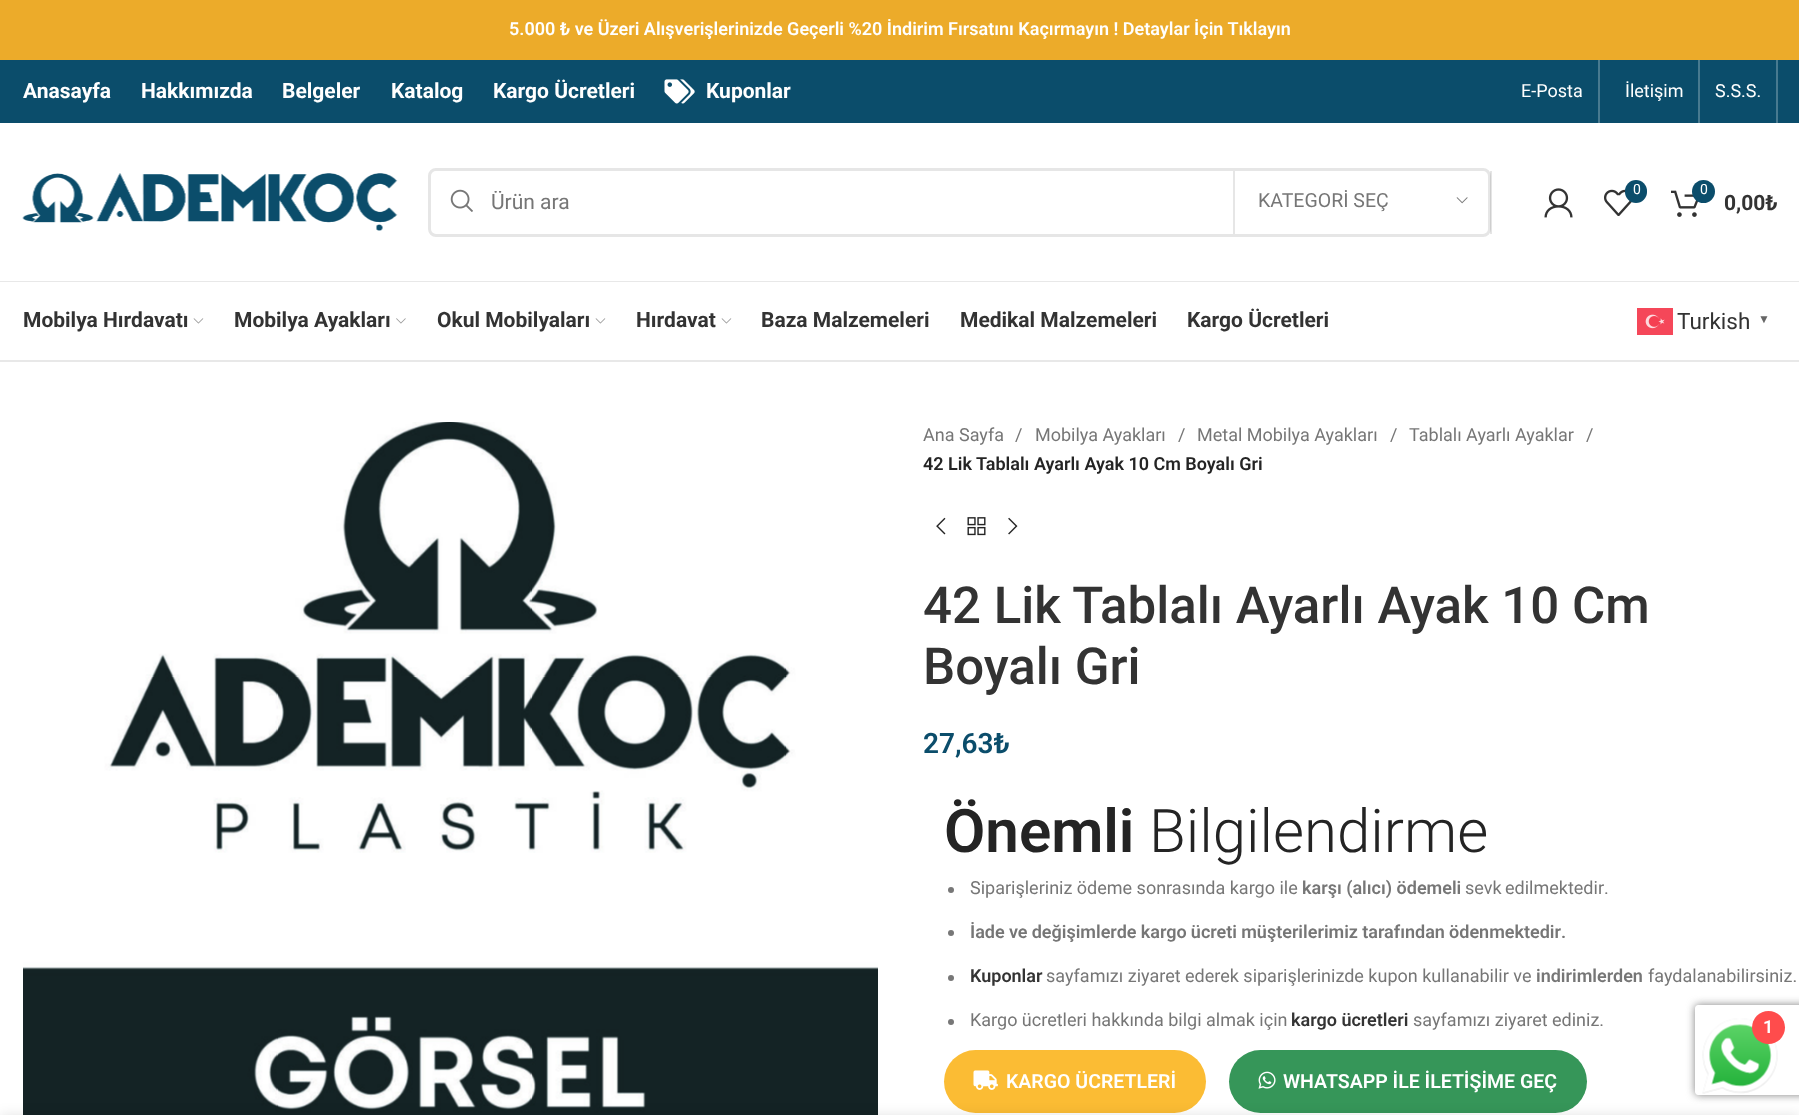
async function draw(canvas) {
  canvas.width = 1799;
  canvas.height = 1115;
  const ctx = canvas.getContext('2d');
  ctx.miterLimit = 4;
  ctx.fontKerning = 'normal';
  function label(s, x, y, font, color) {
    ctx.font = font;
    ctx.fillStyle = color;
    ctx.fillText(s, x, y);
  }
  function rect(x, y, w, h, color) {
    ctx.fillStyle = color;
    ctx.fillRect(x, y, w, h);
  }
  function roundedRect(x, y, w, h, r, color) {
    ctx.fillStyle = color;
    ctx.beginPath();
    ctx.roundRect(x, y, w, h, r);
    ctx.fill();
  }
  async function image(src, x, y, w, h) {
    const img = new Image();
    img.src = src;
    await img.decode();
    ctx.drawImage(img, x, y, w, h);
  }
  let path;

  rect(0, 0, 1799, 1115, '#fff');
  rect(0, 0, 1799, 60, '#ecab2a');
  label('5.000 ₺ ve Üzeri Alışverişlerinizde Geçerli %20 İndirim Fırsatını Kaçırmayın ! Detaylar İçin Tıklayın', 509, 35, '600 18px Roboto', '#fff');
  rect(0, 60, 1799, 63, '#0b4d6b');
  label('Anasayfa', 23, 98, 'bold 21px Roboto', '#fff');
  label('Hakkımızda', 141, 98, 'bold 21px Roboto', '#fff');
  label('Belgeler', 282, 98, 'bold 21px Roboto', '#fff');
  label('Katalog', 391, 98, 'bold 21px Roboto', '#fff');
  label('Kargo Ücretleri', 493, 98, 'bold 21px Roboto', '#fff');
  await image('assets/img1.png', 664, 79, 31, 25);
  label('Kuponlar', 706, 98, 'bold 21px Roboto', '#fff');
  label('E-Posta', 1521, 97, '18px Roboto', '#fff');
  rect(1598, 60, 2, 63, '#487a90');
  label('İletişim', 1625, 97, '18px Roboto', '#fff');
  rect(1698, 60, 2, 63, '#487a90');
  label('S.S.S.', 1715, 97, '18px Roboto', '#fff');
  rect(1776, 60, 2, 63, '#487a90');
  rect(0, 281, 1799, 1, '#e8e8e8');
  await image('assets/img2.png', 22, 173, 376, 58);
  ctx.beginPath();
  ctx.roundRect(429.5, 169.5, 1060, 66, 6.5);
  ctx.strokeStyle = '#e6e6e6';
  ctx.lineWidth = 3;
  ctx.stroke();
  await image('assets/img3.png', 450, 189, 23, 23);
  ctx.save();
  ctx.beginPath();
  ctx.rect(491, 191, 694, 24);
  ctx.clip();
  label('Ürün ara', 491, 209, '21px Roboto', '#767676');
  ctx.restore();
  rect(1490, 171, 2, 63, '#0000001a');
  rect(1233, 171, 2, 63, '#e6e6e6');
  label('KATEGORİ SEÇ', 1258, 207, '19.5px Roboto', '#767676');
  await image('assets/img4.png', 1456, 197, 12, 7);
  await image('assets/img5.png', 1544, 188, 29, 30);
  await image('assets/img6.png', 1604, 189, 28, 27);
  roundedRect(1625, 180, 22, 23, 11, '#0b4d6b');
  label('0', 1633, 194, '14px Roboto', '#fff');
  await image('assets/img7.png', 1671, 190, 28, 27);
  ctx.fillStyle = '#0b4d6b';
  ctx.beginPath();
  ctx.arc(1703.5, 191.5, 11.5, 0, 2 * Math.PI);
  ctx.fill();
  label('0', 1700, 194, '14px Roboto', '#fff');
  label('0,00₺', 1724, 210, 'bold 21px Roboto', '#333');
  rect(0, 360, 1799, 2, '#e8e8e8');
  label('Mobilya Hırdavatı', 23, 327, 'bold 21px Roboto', '#333');
  await image('assets/img8.png', 193, 318, 11, 6);
  label('Mobilya Ayakları', 234, 327, 'bold 21px Roboto', '#333');
  await image('assets/img9.png', 396, 318, 10, 6);
  label('Okul Mobilyaları', 437, 327, 'bold 21px Roboto', '#333');
  await image('assets/img8.png', 595, 318, 11, 6);
  label('Hırdavat', 636, 327, 'bold 21px Roboto', '#333');
  await image('assets/img8.png', 721, 318, 11, 6);
  label('Baza Malzemeleri', 761, 327, 'bold 21px Roboto', '#333');
  label('Medikal Malzemeleri', 960, 327, 'bold 21px Roboto', '#333');
  label('Kargo Ücretleri', 1187, 327, 'bold 21px Roboto', '#333');
  await image('assets/img10.png', 1637, 308, 36, 27);
  label('Turkish', 1677, 329, '22.5px Roboto', '#333');
  label('▼', 1758, 323, 'bold 12px Liberation Sans', '#666');
  await image('assets/img11.png', 23, 422, 855, 693);
  label('Ana Sayfa', 923, 441, '18px Roboto', '#767676');
  label('/', 1015, 441, '18px Roboto', '#767676');
  label('Mobilya Ayakları', 1035, 441, '18px Roboto', '#767676');
  label('/', 1178, 441, '18px Roboto', '#767676');
  label('Metal Mobilya Ayakları', 1197, 441, '18px Roboto', '#767676');
  label('/', 1390, 441, '18px Roboto', '#767676');
  label('Tablalı Ayarlı Ayaklar', 1409, 441, '18px Roboto', '#767676');
  label('/', 1586, 441, '18px Roboto', '#767676');
  label('42 Lik Tablalı Ayarlı Ayak 10 Cm Boyalı Gri', 923, 470, '600 18px Roboto', '#242424');
  await image('assets/img12.png', 936, 517, 10, 18);
  await image('assets/img13.png', 967, 517, 19, 19);
  await image('assets/img14.png', 1008, 517, 10, 18);
  label('42 Lik Tablalı Ayarlı Ayak 10 Cm', 923, 623, '500 51px Roboto', '#333');
  label('Boyalı Gri', 923, 684, '500 51px Roboto', '#333');
  label('27,63₺', 923, 753, '600 28px Roboto', '#0b4d6b');
  label('Önemli', 944, 852, '600 60px Roboto', '#242424');
  label('Bilgilendirme', 1149, 852, '300 60px Roboto', '#242424');
  ctx.fillStyle = '#777';
  ctx.beginPath();
  ctx.arc(951, 890, 3, 0, 2 * Math.PI);
  ctx.fill();
  label('Siparişleriniz ödeme sonrasında kargo ile', 970, 894, '18px Roboto', '#767676');
  label('karşı (alıcı) ödemeli', 1302, 894, '600 18px Roboto', '#767676');
  ctx.wordSpacing = '-1px';
  label('sevk edilmektedir.', 1465, 894, '18px Roboto', '#767676');
  ctx.fillStyle = '#777';
  ctx.beginPath();
  ctx.arc(951, 933, 3, 0, 2 * Math.PI);
  ctx.fill();
  ctx.wordSpacing = '-0.25px';
  label('İade ve değişimlerde kargo ücreti müşterilerimiz tarafından ödenmektedir.', 970, 938, '600 18px Roboto', '#767676');
  ctx.fillStyle = '#777';
  ctx.beginPath();
  ctx.arc(951, 978, 3, 0, 2 * Math.PI);
  ctx.fill();
  ctx.wordSpacing = '0px';
  label('Kuponlar', 970, 982, '600 18px Roboto', '#333');
  label('sayfamızı ziyaret ederek siparişlerinizde kupon kullanabilir ve', 1046, 982, '18px Roboto', '#767676');
  label('indirimlerden', 1536, 982, '600 18px Roboto', '#767676');
  label('faydalanabilirsiniz.', 1648, 982, '18px Roboto', '#767676');
  ctx.fillStyle = '#777';
  ctx.beginPath();
  ctx.arc(951, 1022, 3, 0, 2 * Math.PI);
  ctx.fill();
  label('Kargo ücretleri hakkında bilgi almak için', 970, 1026, '18px Roboto', '#767676');
  label('kargo ücretleri', 1291, 1026, '600 18px Roboto', '#333');
  label('sayfamızı ziyaret ediniz.', 1413, 1026, '18px Roboto', '#767676');
  roundedRect(944, 1050, 262, 63, 31.5, '#fbbc34');
  await image('assets/img15.png', 973, 1070, 25, 20);
  label('KARGO ÜCRETLERİ', 1006, 1088, '600 19.5px Roboto', '#fff');
  roundedRect(1229, 1050, 358, 63, 31.5, '#369659');
  await image('assets/img16.png', 1258, 1071, 18, 18);
  label('WHATSAPP İLE İLETİŞİME GEÇ', 1283, 1088, '600 19.5px Roboto', '#fff');
  ctx.save();
  path = new Path2D('M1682 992H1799V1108H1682ZM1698 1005H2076C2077.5 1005 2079 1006.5 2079 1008V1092C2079 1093.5 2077.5 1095 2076 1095H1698C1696.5 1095 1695 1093.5 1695 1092V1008C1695 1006.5 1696.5 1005 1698 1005Z');
  ctx.clip(path, 'evenodd');
  ctx.fillStyle = '#808080';
  ctx.filter = 'blur(4px)';
  ctx.beginPath();
  ctx.roundRect(1695, 1005, 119, 90, 3);
  ctx.fill();
  ctx.filter = 'none';
  ctx.restore();
  await image('assets/img17.png', 1702, 1018, 76, 76);
  ctx.fillStyle = '#ff4c4c';
  ctx.beginPath();
  ctx.arc(1768.5, 1027.5, 16.5, 0, 2 * Math.PI);
  ctx.fill();
  label('1', 1763, 1033, '600 18px Roboto', '#fff');
  ctx.fillStyle = '#0000001f';
  ctx.filter = 'blur(7px)';
  ctx.beginPath();
  ctx.rect(0, 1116, 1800, 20);
  ctx.fill();
  ctx.filter = 'none';
}

draw(document.querySelector('canvas'));
